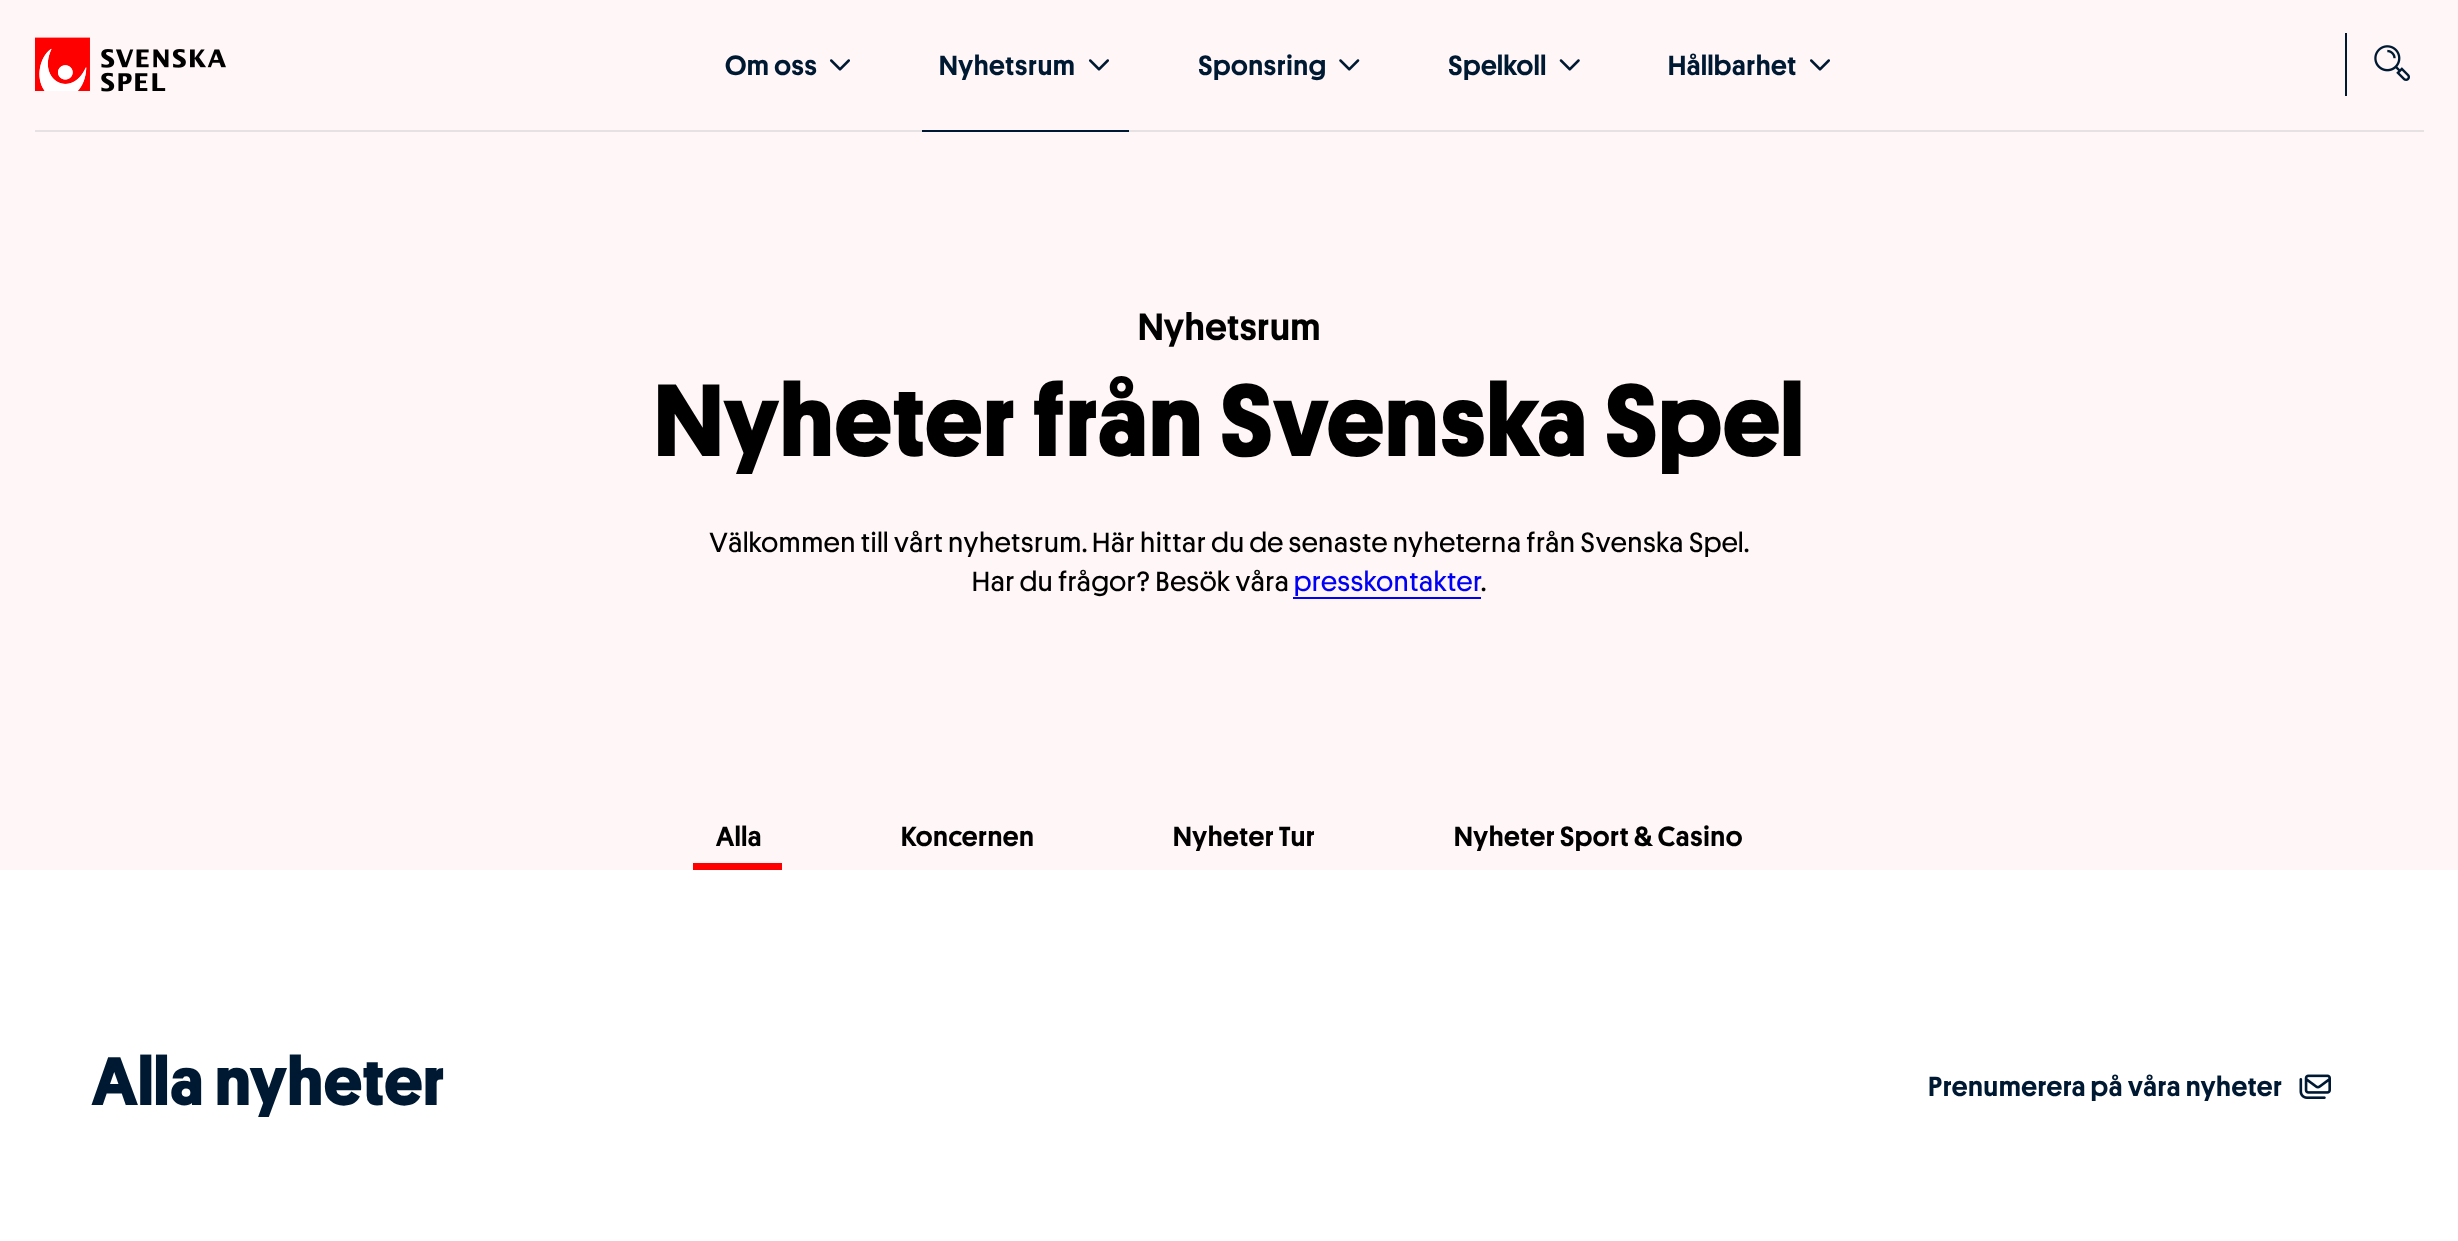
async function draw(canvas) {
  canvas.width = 2458;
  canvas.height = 1241;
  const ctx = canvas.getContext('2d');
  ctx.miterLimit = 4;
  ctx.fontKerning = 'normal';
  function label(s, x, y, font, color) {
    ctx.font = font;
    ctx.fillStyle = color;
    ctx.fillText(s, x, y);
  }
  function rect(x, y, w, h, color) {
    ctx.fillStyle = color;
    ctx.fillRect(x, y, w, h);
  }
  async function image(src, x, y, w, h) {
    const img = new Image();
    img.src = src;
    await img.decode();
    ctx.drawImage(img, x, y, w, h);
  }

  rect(0, 0, 2458, 1241, '#fff');
  rect(0, 0, 2458, 870, '#fff7f7');
  rect(35, 130, 2389, 2, '#e6e1e3');
  await image('assets/img1.png', 35, 37, 191, 55);
  ctx.letterSpacing = '0.48px';
  label('Om oss', 725, 75, '500 28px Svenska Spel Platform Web', '#001932');
  await image('assets/img2.png', 829, 59, 21, 12);
  label('Nyhetsrum', 939, 75, '500 28px Svenska Spel Platform Web', '#001932');
  await image('assets/img2.png', 1088, 59, 21, 12);
  rect(922, 130, 207, 2, '#001932');
  label('Sponsring', 1198, 75, '500 28px Svenska Spel Platform Web', '#001932');
  await image('assets/img3.png', 1339, 59, 21, 12);
  label('Spelkoll', 1448, 75, '500 28px Svenska Spel Platform Web', '#001932');
  await image('assets/img4.png', 1559, 59, 21, 12);
  label('Hållbarhet', 1668, 75, '500 28px Svenska Spel Platform Web', '#001932');
  await image('assets/img2.png', 1809, 59, 21, 12);
  rect(2345, 33, 2, 63, '#001932');
  await image('assets/img5.png', 2374, 45, 36, 36);
  ctx.letterSpacing = '0.25px';
  label('Nyhetsrum', 1138, 340, '500 38.25px Svenska Spel Platform Web', '#000');
  ctx.letterSpacing = '0.5px';
  label('Nyheter från Svenska Spel', 654, 456, 'bold 103.25px Svenska Spel Platform Web', '#000');
  ctx.letterSpacing = '0.48px';
  label('Välkommen till vårt nyhetsrum. Här hittar du de senaste nyheterna från Svenska Spel.', 709, 552, '28px Svenska Spel Platform Web', '#000');
  label('Har du frågor? Besök våra', 972, 591, '28px Svenska Spel Platform Web', '#000');
  label('presskontakter', 1294, 591, '28px Svenska Spel Platform Web', '#0000f5');
  rect(1293, 597, 188, 2, '#0000f5');
  label('.', 1481, 591, '28px Svenska Spel Platform Web', '#000');
  label('Alla', 716, 846, '500 28px Svenska Spel Platform Web', '#000');
  rect(693, 863, 89, 7, '#f00');
  label('Koncernen', 901, 846, '500 28px Svenska Spel Platform Web', '#000');
  label('Nyheter Tur', 1173, 846, '500 28px Svenska Spel Platform Web', '#000');
  label('Nyheter Sport & Casino', 1454, 846, '500 28px Svenska Spel Platform Web', '#000');
  ctx.letterSpacing = '0.3px';
  label('Alla nyheter', 92, 1105, 'bold 69px Svenska Spel Platform Web', '#001932');
  ctx.letterSpacing = '0.48px';
  label('Prenumerera på våra nyheter', 1928, 1096, '500 28px Svenska Spel Platform Web', '#001932');
  await image('assets/img6.png', 2299, 1074, 32, 25);
}

draw(document.querySelector('canvas'));
